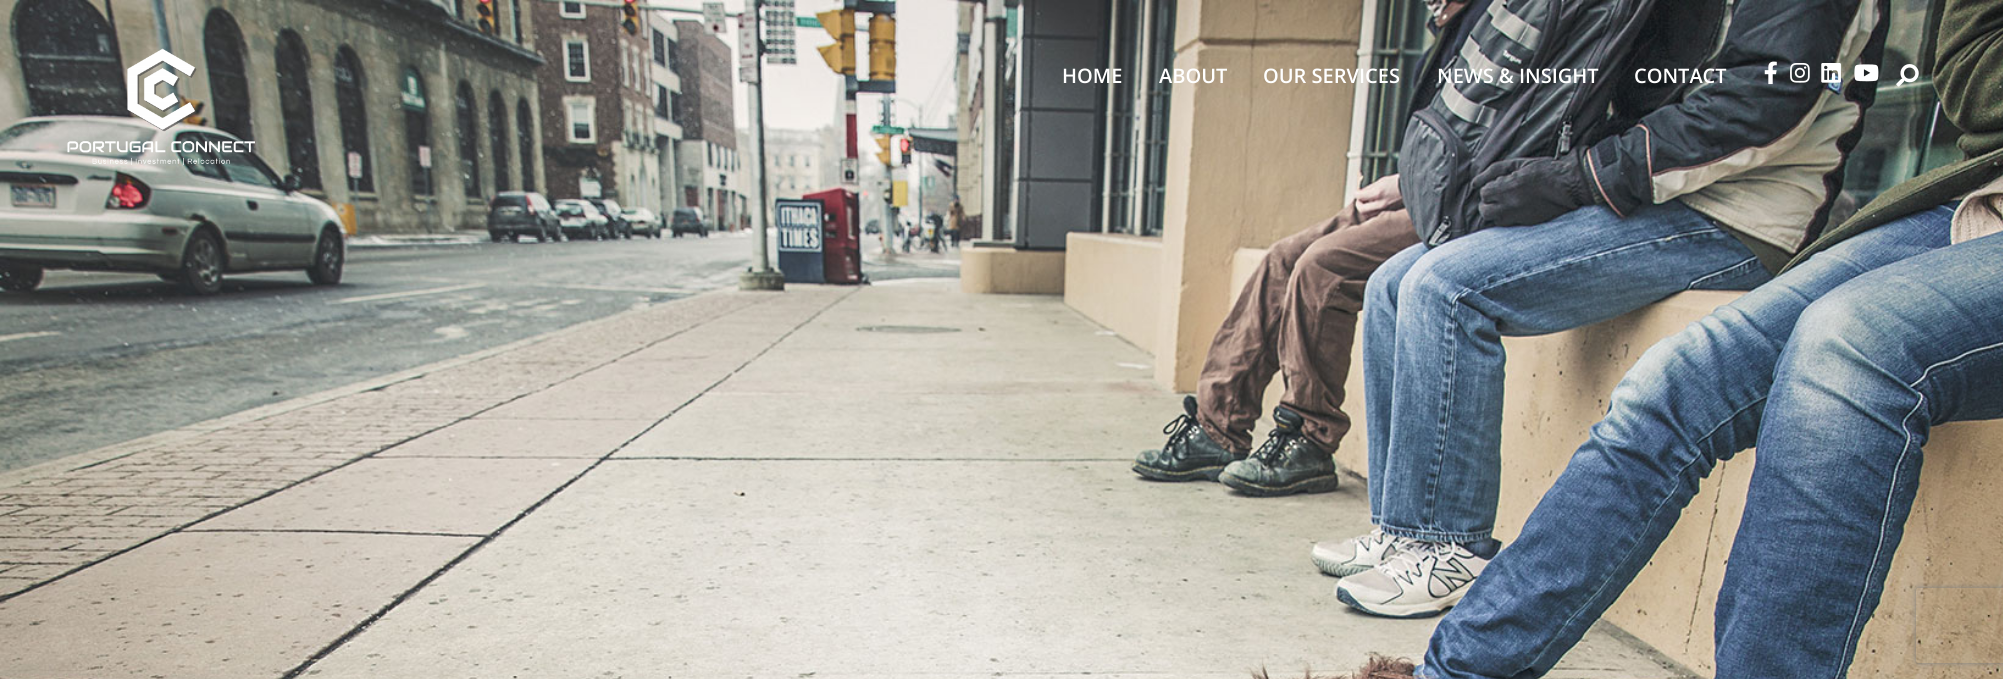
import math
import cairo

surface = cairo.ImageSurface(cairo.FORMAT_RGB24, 2003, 679)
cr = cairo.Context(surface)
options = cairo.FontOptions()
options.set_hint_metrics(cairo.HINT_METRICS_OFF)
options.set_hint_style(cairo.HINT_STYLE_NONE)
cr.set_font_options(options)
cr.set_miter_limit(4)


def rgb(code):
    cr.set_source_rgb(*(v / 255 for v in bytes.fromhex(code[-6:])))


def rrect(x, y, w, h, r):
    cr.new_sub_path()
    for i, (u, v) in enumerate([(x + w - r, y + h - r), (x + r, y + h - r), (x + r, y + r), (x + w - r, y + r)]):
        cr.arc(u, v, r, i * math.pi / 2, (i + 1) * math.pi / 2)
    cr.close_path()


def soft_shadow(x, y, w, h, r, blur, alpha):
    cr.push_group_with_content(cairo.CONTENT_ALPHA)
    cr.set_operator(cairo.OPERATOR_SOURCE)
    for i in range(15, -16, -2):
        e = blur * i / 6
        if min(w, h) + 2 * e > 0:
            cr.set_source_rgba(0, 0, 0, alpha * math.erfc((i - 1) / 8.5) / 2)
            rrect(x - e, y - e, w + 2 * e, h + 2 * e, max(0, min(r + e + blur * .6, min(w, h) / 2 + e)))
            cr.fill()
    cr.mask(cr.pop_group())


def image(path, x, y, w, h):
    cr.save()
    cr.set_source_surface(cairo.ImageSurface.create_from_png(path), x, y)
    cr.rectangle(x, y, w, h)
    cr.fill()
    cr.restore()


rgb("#ffffff")
cr.paint()
image("img/1.png", 0, 0, 2003, 679)
image("img/2.png", 67, 48, 188, 117)
image("img/3.png", 1764, 61, 13, 24)
image("img/4.png", 1790, 63, 20, 20)
image("img/5.png", 1821, 63, 20, 20)
image("img/6.png", 1854, 64, 25, 18)
image("img/7.png", 1896, 64, 23, 23)
cr.save()
cr.set_fill_rule(cairo.FILL_RULE_EVEN_ODD)
cr.new_path()
cr.move_to(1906, 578)
cr.line_to(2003, 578)
cr.line_to(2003, 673)
cr.line_to(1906, 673)
cr.close_path()
cr.move_to(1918.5, 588)
cr.line_to(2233.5, 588)
cr.curve_to(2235, 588, 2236, 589, 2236, 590.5)
cr.line_to(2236, 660.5)
cr.curve_to(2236, 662, 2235, 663, 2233.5, 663)
cr.line_to(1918.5, 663)
cr.curve_to(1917, 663, 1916, 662, 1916, 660.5)
cr.line_to(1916, 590.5)
cr.curve_to(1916, 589, 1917, 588, 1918.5, 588)
cr.close_path()
cr.clip()
rgb("#808080")
soft_shadow(1916, 588, 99, 75, 2.5, 3, 1)
cr.restore()
cr.select_font_face("Open Sans SemiBold")
cr.set_font_size(20)
rgb("#ffffff")
for x, y, s in [
    (1062, 83, "HOME"),
    (1159, 83, "ABOUT"),
    (1263, 83, "OUR SERVICES"),
    (1437, 83, "NEWS & INSIGHT"),
    (1634, 83, "CONTACT"),
]:
    cr.move_to(x, y)
    cr.show_text(s)
surface.write_to_png("page.png")
